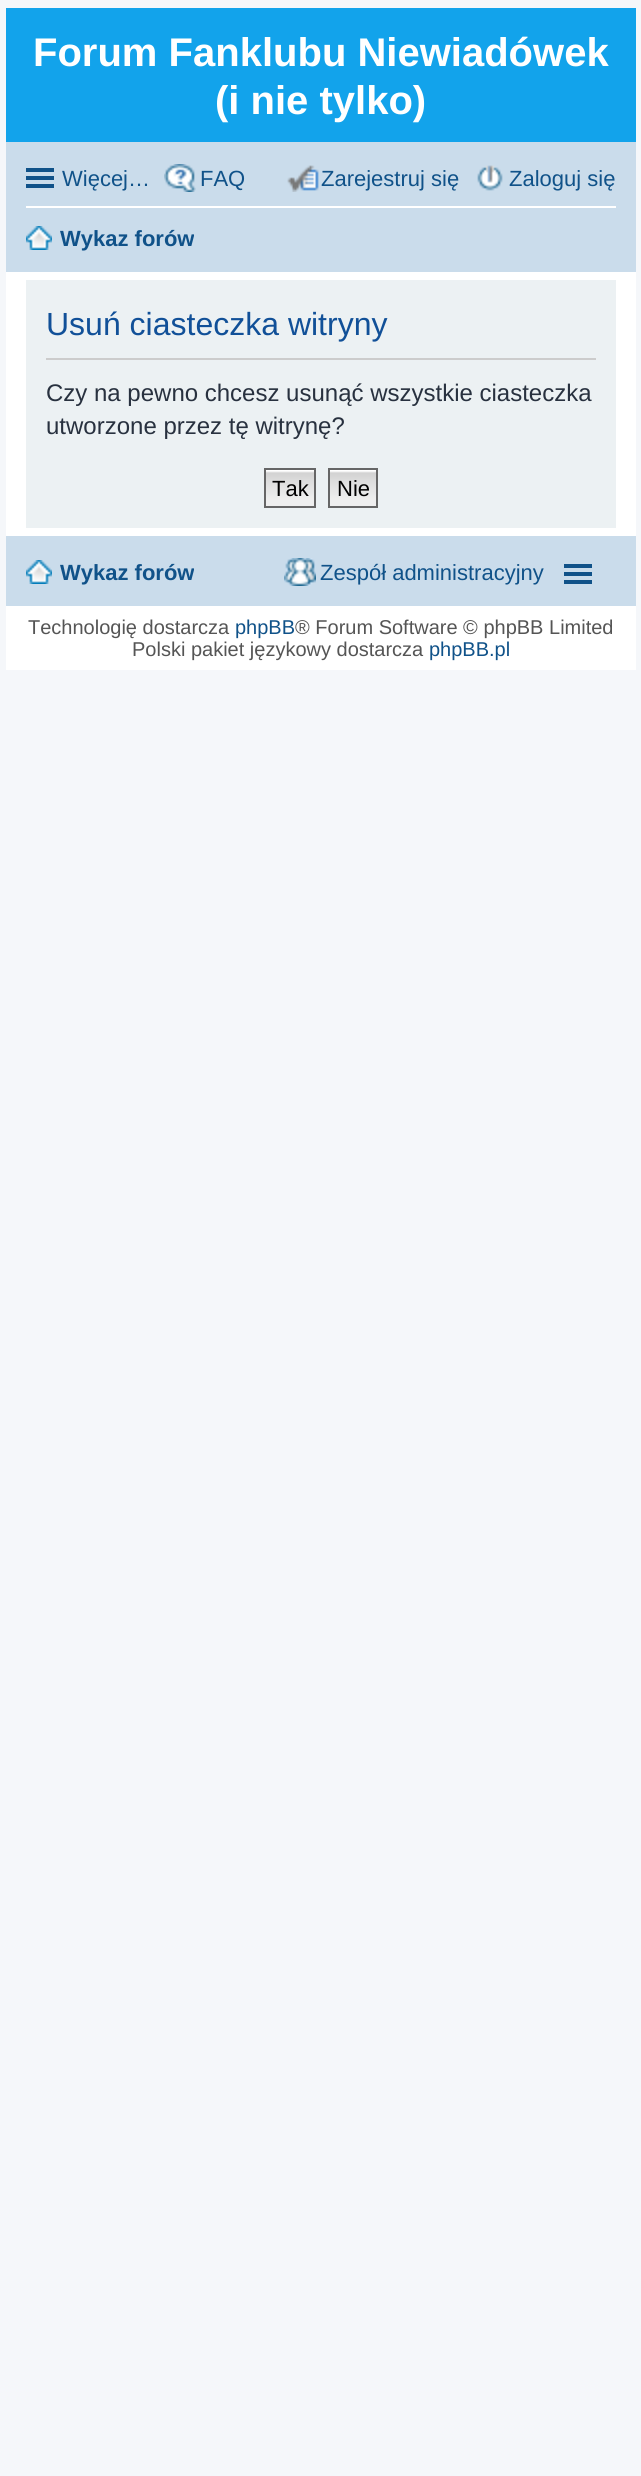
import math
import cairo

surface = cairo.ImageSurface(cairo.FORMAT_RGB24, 641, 2476)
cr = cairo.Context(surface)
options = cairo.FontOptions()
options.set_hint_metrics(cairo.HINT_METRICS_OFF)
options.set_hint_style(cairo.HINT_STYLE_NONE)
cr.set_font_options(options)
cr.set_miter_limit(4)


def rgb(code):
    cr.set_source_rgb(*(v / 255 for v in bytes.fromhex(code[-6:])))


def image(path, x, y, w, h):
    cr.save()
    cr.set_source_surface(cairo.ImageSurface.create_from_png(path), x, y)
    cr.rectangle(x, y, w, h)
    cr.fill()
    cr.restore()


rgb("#f5f7fa")
cr.paint()
for x, y, w, h, color in [
    (6, 272, 630, 398, "#ffffff"),
    (6, 8, 630, 134, "#12a3eb"),
    (6, 142, 630, 130, "#cadceb"),
    (26, 168, 28, 4, "#105289"),
    (26, 176, 28, 4, "#105289"),
    (26, 184, 28, 4, "#105289"),
]:
    rgb(color)
    cr.rectangle(x, y, w, h)
    cr.fill()
image("img/1.png", 164, 164, 32, 28)
image("img/2.png", 287, 165, 32, 27)
image("img/3.png", 477, 165, 26, 26)
rgb("#ffffff")
cr.rectangle(26, 206, 590, 2)
cr.fill()
image("img/4.png", 26, 226, 26, 24)
rgb("#ecf1f3")
cr.rectangle(26, 280, 590, 248)
cr.fill()
rgb("#cccccc")
cr.rectangle(46, 358, 550, 2)
cr.fill()
image("img/5.png", 266, 470, 48, 36)
cr.rectangle(265, 469, 50, 38)
rgb("#666666")
cr.stroke()
image("img/6.png", 330, 470, 46, 36)
cr.rectangle(329, 469, 48, 38)
cr.stroke()
rgb("#cadceb")
cr.rectangle(6, 536, 630, 70)
cr.fill()
image("img/4.png", 26, 560, 26, 24)
image("img/7.png", 284, 558, 32, 28)
for x, y, w, h, color in [
    (564, 564, 28, 4, "#105289"),
    (564, 572, 28, 4, "#105289"),
    (564, 580, 28, 4, "#105289"),
]:
    rgb(color)
    cr.rectangle(x, y, w, h)
    cr.fill()
cr.select_font_face("Liberation Sans", cairo.FONT_SLANT_NORMAL, cairo.FONT_WEIGHT_BOLD)
cr.set_font_size(40)
rgb("#ffffff")
cr.move_to(33, 66)
cr.show_text("Forum Fanklubu Niewiadówek")
cr.move_to(215, 114)
cr.show_text("(i nie tylko)")
cr.select_font_face("Liberation Sans")
cr.set_font_size(22)
rgb("#105289")
for x, y, s in [
    (62, 186, "Więcej…"),
    (200, 186, "FAQ"),
    (321, 186, "Zarejestruj się"),
    (509, 186, "Zaloguj się"),
]:
    cr.move_to(x, y)
    cr.show_text(s)
cr.save()
cr.rectangle(26, 214, 168, 48)
cr.clip()
cr.select_font_face("Liberation Sans", cairo.FONT_SLANT_NORMAL, cairo.FONT_WEIGHT_BOLD)
cr.move_to(60, 246)
cr.show_text("Wykaz forów")
cr.restore()
cr.set_font_size(32)
rgb("#115098")
cr.move_to(46, 335)
cr.show_text("Usuń ciasteczka witryny")
cr.set_font_size(24)
rgb("#28313f")
cr.move_to(46, 401)
cr.show_text("Czy na pewno chcesz usunąć wszystkie ciasteczka")
cr.move_to(46, 434)
cr.show_text("utworzone przez tę witrynę?")
cr.set_font_size(22)
rgb("#000000")
cr.move_to(272, 496)
cr.show_text("Tak")
cr.move_to(337, 496)
cr.show_text("Nie")
cr.save()
cr.rectangle(26, 548, 168, 48)
cr.clip()
cr.select_font_face("Liberation Sans", cairo.FONT_SLANT_NORMAL, cairo.FONT_WEIGHT_BOLD)
rgb("#105289")
cr.move_to(60, 580)
cr.show_text("Wykaz forów")
cr.restore()
rgb("#105289")
cr.move_to(320, 580)
cr.show_text("Zespół administracyjny")
cr.set_font_size(20)
rgb("#555555")
cr.move_to(28, 634)
cr.show_text("Technologię dostarcza")
rgb("#105289")
cr.move_to(235, 634)
cr.show_text("phpBB")
rgb("#555555")
cr.move_to(295, 634)
cr.show_text("® Forum Software © phpBB Limited")
cr.move_to(132, 656)
cr.show_text("Polski pakiet językowy dostarcza")
rgb("#105289")
cr.move_to(429, 656)
cr.show_text("phpBB.pl")
surface.write_to_png("page.png")
